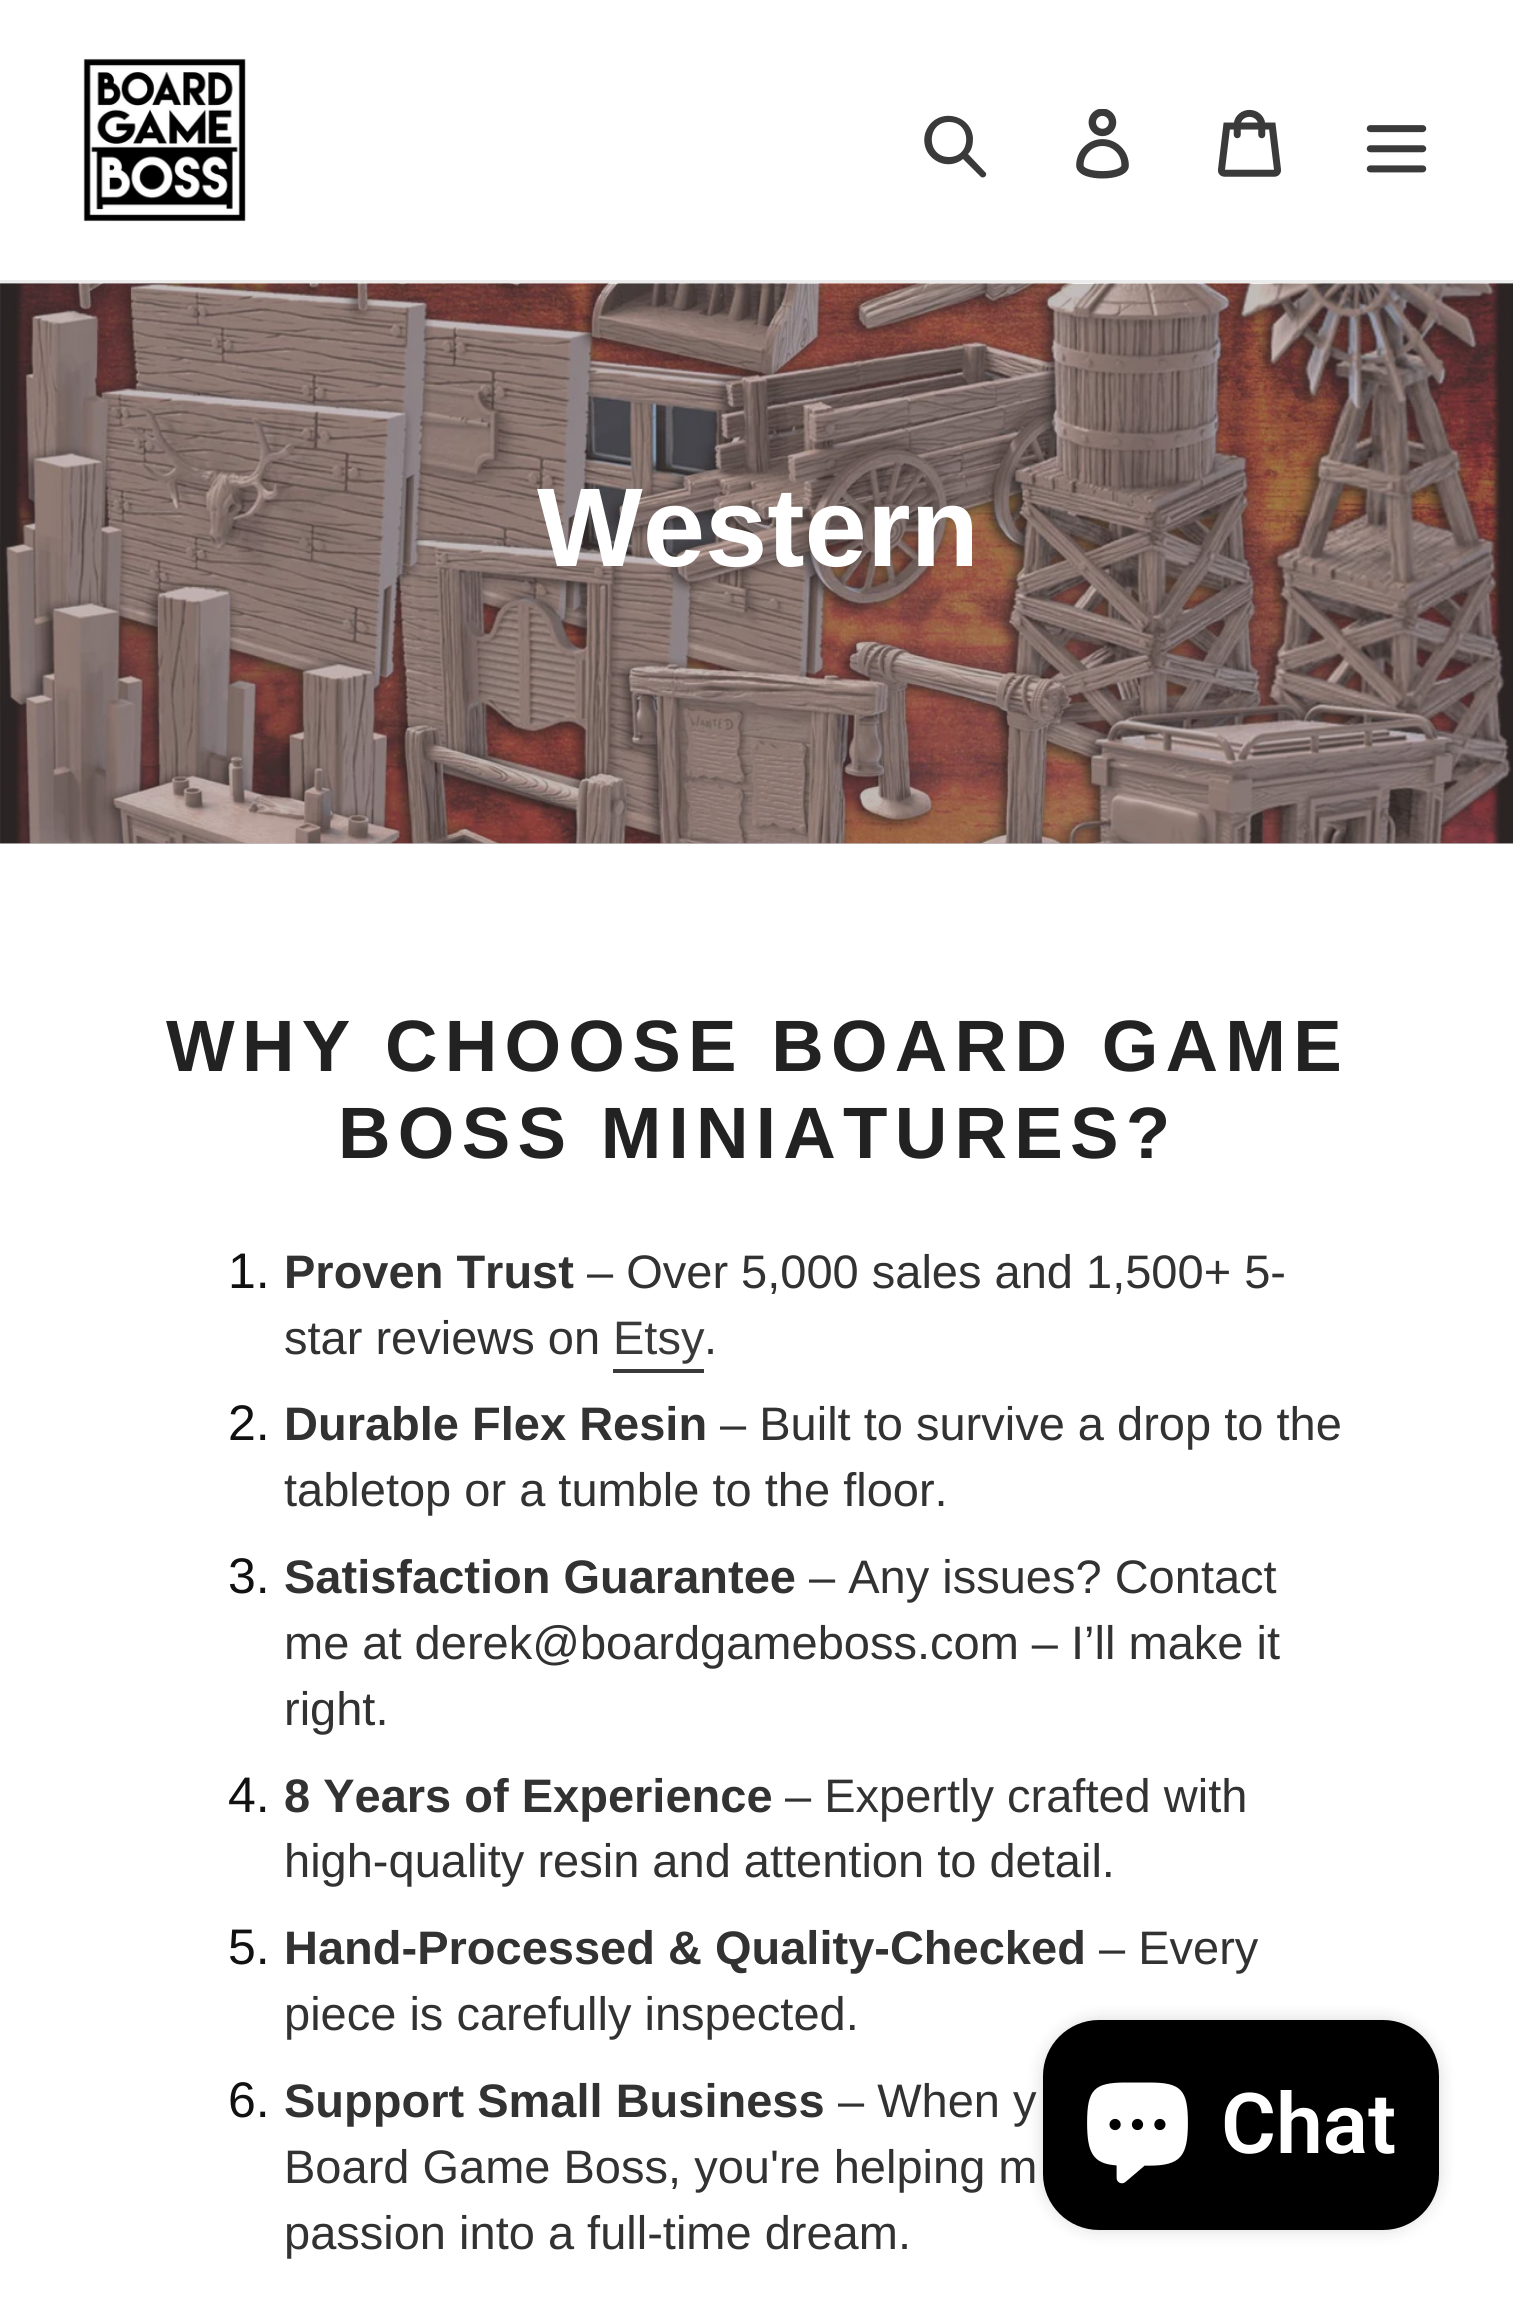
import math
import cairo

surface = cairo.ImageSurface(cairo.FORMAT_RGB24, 1513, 2303)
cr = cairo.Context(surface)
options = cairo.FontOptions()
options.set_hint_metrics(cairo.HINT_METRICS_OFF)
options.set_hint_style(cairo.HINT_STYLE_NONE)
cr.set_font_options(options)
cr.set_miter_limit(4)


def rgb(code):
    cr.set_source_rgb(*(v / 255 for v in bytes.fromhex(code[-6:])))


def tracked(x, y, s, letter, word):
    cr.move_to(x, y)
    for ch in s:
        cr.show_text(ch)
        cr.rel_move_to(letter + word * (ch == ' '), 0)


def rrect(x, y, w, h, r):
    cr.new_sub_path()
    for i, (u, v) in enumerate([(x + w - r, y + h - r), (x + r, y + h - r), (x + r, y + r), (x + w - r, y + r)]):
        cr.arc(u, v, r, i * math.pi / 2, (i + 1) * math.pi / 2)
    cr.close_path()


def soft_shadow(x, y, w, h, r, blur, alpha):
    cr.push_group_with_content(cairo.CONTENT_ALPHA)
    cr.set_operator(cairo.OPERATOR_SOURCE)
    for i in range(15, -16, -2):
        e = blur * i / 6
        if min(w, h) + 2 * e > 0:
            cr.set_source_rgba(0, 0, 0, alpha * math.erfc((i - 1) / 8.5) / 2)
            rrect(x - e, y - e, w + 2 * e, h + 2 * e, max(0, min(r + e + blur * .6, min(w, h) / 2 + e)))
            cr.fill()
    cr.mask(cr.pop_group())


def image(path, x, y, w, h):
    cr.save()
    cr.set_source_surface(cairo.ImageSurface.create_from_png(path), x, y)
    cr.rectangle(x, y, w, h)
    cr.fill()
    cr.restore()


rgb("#ffffff")
cr.paint()
rgb("#c3bcbc")
cr.rectangle(0, 843, 1513, 1)
cr.fill()
rgb("#ebebeb")
cr.rectangle(0, 280, 1513, 4)
cr.fill()
image("img/1.png", 83, 58, 163, 164)
rgb("#3a3a3a")
cr.new_path()
cr.move_to(985, 172)
cr.line_to(968, 154)
cr.curve_to(972, 150, 973, 144, 973, 138)
cr.curve_to(971, 113, 936, 107, 926, 131)
cr.curve_to(923, 138, 924, 147, 928, 153)
cr.curve_to(936, 165, 952, 168, 963, 159)
cr.line_to(981, 177)
cr.curve_to(985, 179, 988, 174, 985, 172)
cr.close_path()
cr.move_to(949, 157)
cr.curve_to(926, 157, 926, 122, 949, 122)
cr.curve_to(972, 122, 972, 157, 949, 157)
cr.close_path()
cr.fill()
image("img/2.png", 1076, 109, 53, 70)
image("img/3.png", 1218, 109, 63, 68)
image("img/4.png", 1366, 125, 61, 48)
image("img/5.png", 0, 283, 1513, 561)
cr.rectangle(613, 1369, 91, 4)
cr.fill()
rgb("#000000")
soft_shadow(1043, 2020, 396, 210, 56, 9, 0.15)
rgb("#000000")
rrect(1043, 2020, 396, 210, 56)
cr.fill()
image("img/6.png", 1087, 2082, 101, 102)
cr.select_font_face("Liberation Sans", cairo.FONT_SLANT_NORMAL, cairo.FONT_WEIGHT_BOLD)
cr.set_font_size(112)
rgb("#ffffff")
cr.move_to(537, 566)
cr.show_text("Western")
cr.set_font_size(72.75)
rgb("#222222")
tracked(166, 1071, "WHY CHOOSE BOARD GAME", 7.25, 0)
tracked(338, 1158, "BOSS MINIATURES?", 7.25, 0)
cr.select_font_face("Liberation Sans")
cr.set_font_size(50)
rgb("#111111")
cr.move_to(228, 1288)
cr.show_text("1.")
cr.select_font_face("Liberation Sans", cairo.FONT_SLANT_NORMAL, cairo.FONT_WEIGHT_BOLD)
cr.set_font_size(47)
rgb("#333232")
cr.move_to(284, 1288)
cr.show_text("Proven Trust")
cr.select_font_face("Liberation Sans")
cr.move_to(587, 1288)
cr.show_text("– Over 5,000 sales and 1,500+ 5-")
cr.move_to(284, 1354)
cr.show_text("star reviews on")
rgb("#3a3a3a")
cr.move_to(613, 1354)
cr.show_text("Etsy")
rgb("#333232")
cr.move_to(704, 1354)
cr.show_text(".")
cr.set_font_size(50)
rgb("#111111")
cr.move_to(228, 1440)
cr.show_text("2.")
cr.select_font_face("Liberation Sans", cairo.FONT_SLANT_NORMAL, cairo.FONT_WEIGHT_BOLD)
cr.set_font_size(47)
rgb("#333232")
cr.move_to(284, 1440)
cr.show_text("Durable Flex Resin")
cr.select_font_face("Liberation Sans")
cr.move_to(720, 1440)
cr.show_text("– Built to survive a drop to the")
cr.move_to(284, 1506)
cr.show_text("tabletop or a tumble to the floor.")
cr.set_font_size(50)
rgb("#111111")
cr.move_to(228, 1593)
cr.show_text("3.")
cr.select_font_face("Liberation Sans", cairo.FONT_SLANT_NORMAL, cairo.FONT_WEIGHT_BOLD)
cr.set_font_size(47)
rgb("#333232")
cr.move_to(284, 1593)
cr.show_text("Satisfaction Guarantee")
cr.select_font_face("Liberation Sans")
for x, y, s in [
    (809, 1593, "– Any issues? Contact"),
    (284, 1659, "me at derek@boardgameboss.com – I’ll make it"),
    (284, 1725, "right."),
]:
    cr.move_to(x, y)
    cr.show_text(s)
cr.set_font_size(50)
rgb("#111111")
cr.move_to(228, 1812)
cr.show_text("4.")
cr.select_font_face("Liberation Sans", cairo.FONT_SLANT_NORMAL, cairo.FONT_WEIGHT_BOLD)
cr.set_font_size(47)
rgb("#333232")
cr.move_to(284, 1812)
cr.show_text("8 Years of Experience")
cr.select_font_face("Liberation Sans")
cr.move_to(785, 1812)
cr.show_text("– Expertly crafted with")
cr.move_to(284, 1877)
cr.show_text("high-quality resin and attention to detail.")
cr.set_font_size(50)
rgb("#111111")
cr.move_to(228, 1964)
cr.show_text("5.")
cr.select_font_face("Liberation Sans", cairo.FONT_SLANT_NORMAL, cairo.FONT_WEIGHT_BOLD)
cr.set_font_size(47)
rgb("#333232")
cr.move_to(284, 1964)
cr.show_text("Hand-Processed & Quality-Checked")
cr.select_font_face("Liberation Sans")
cr.move_to(1099, 1964)
cr.show_text("– Every")
cr.move_to(284, 2030)
cr.show_text("piece is carefully inspected.")
cr.set_font_size(50)
rgb("#111111")
cr.move_to(228, 2117)
cr.show_text("6.")
cr.select_font_face("Liberation Sans", cairo.FONT_SLANT_NORMAL, cairo.FONT_WEIGHT_BOLD)
cr.set_font_size(47)
rgb("#333232")
cr.move_to(284, 2117)
cr.show_text("Support Small Business")
cr.select_font_face("Liberation Sans")
for x, y, s in [
    (838, 2117, "– When y"),
    (284, 2183, "Board Game Boss, you're helping m"),
    (284, 2249, "passion into a full-time dream."),
]:
    cr.move_to(x, y)
    cr.show_text(s)
cr.select_font_face("Roboto SemiBold")
cr.set_font_size(84)
rgb("#ffffff")
cr.move_to(1221, 2153)
cr.show_text("Chat")
surface.write_to_png("page.png")
